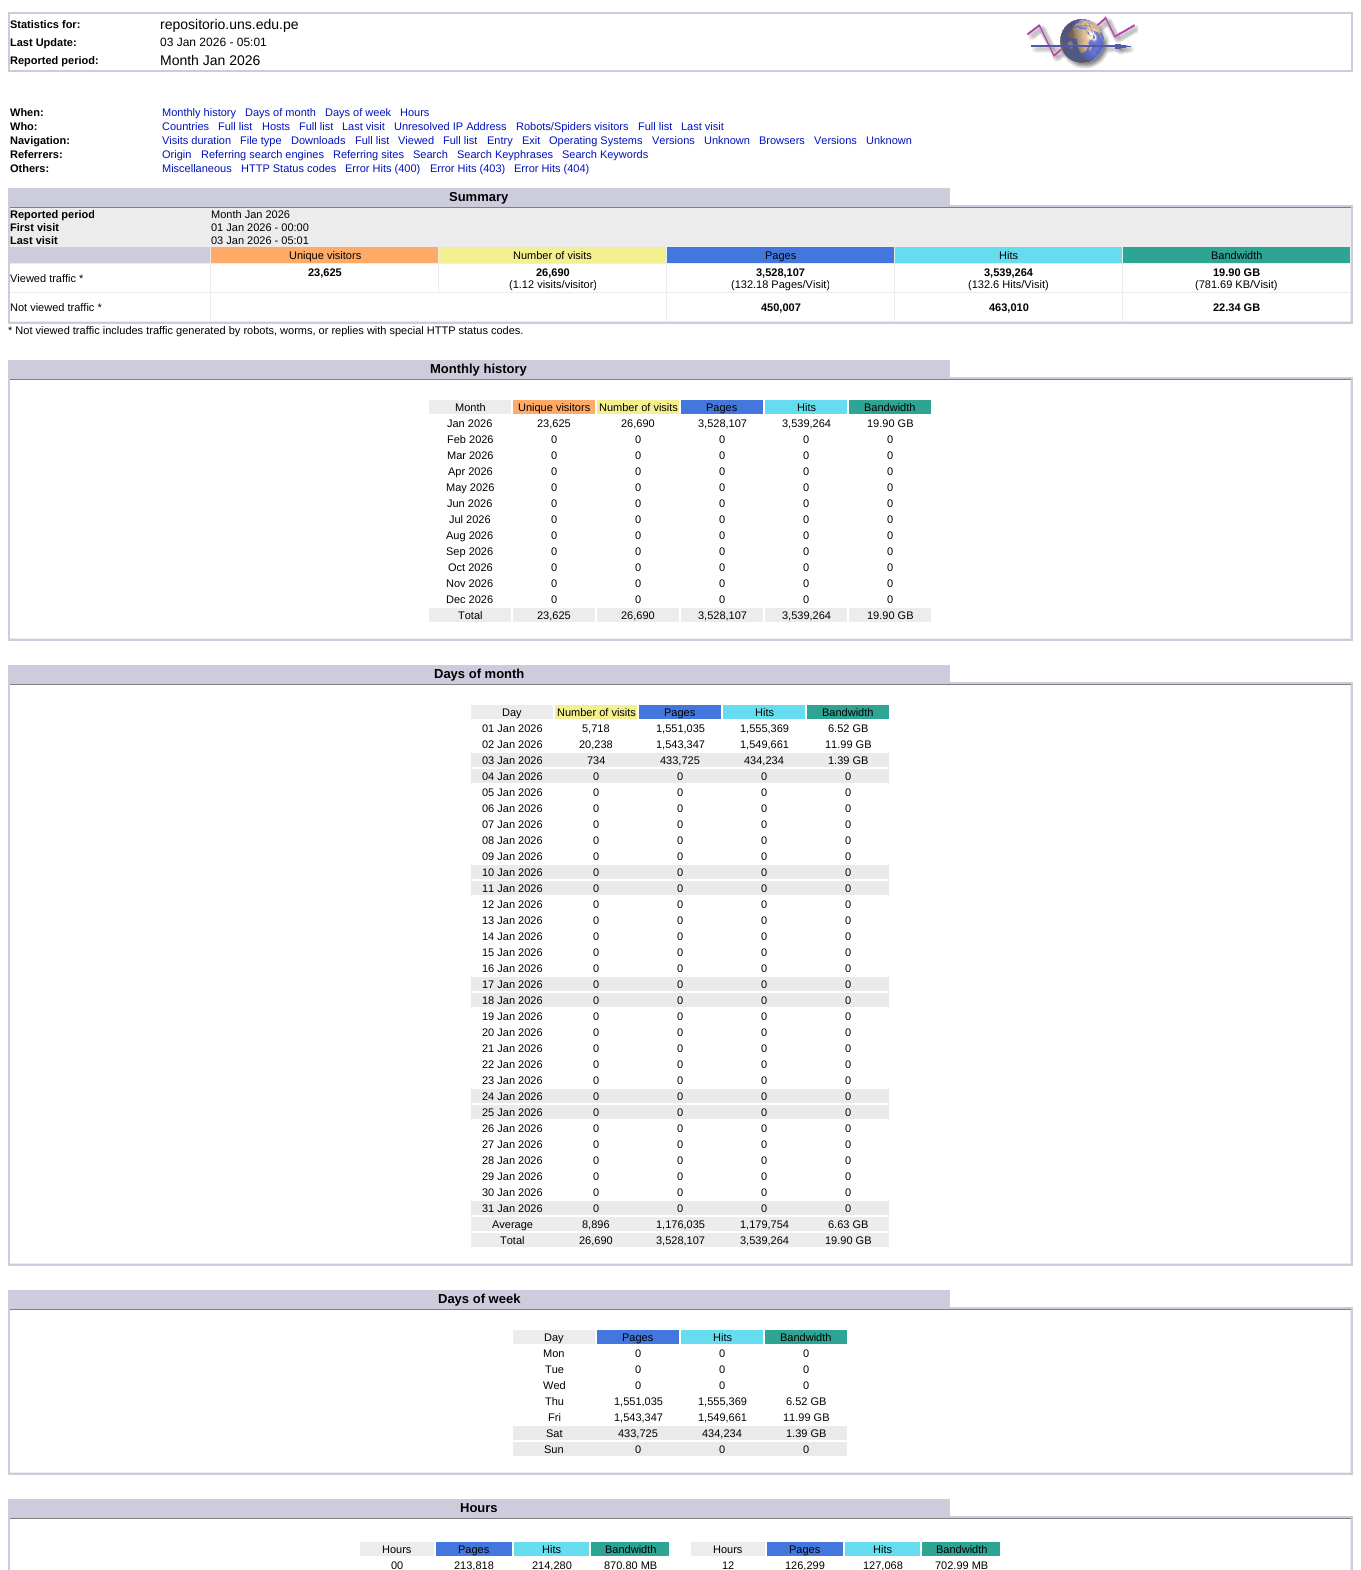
import math
import cairo

surface = cairo.ImageSurface(cairo.FORMAT_RGB24, 1361, 1570)
cr = cairo.Context(surface)
options = cairo.FontOptions()
options.set_hint_metrics(cairo.HINT_METRICS_OFF)
options.set_hint_style(cairo.HINT_STYLE_NONE)
cr.set_font_options(options)
cr.set_miter_limit(4)


def rgb(code):
    cr.set_source_rgb(*(v / 255 for v in bytes.fromhex(code[-6:])))


def image(path, x, y, w, h):
    cr.save()
    cr.set_source_surface(cairo.ImageSurface.create_from_png(path), x, y)
    cr.rectangle(x, y, w, h)
    cr.fill()
    cr.restore()


rgb("#ffffff")
cr.paint()
rgb("#ccccdd")
cr.rectangle(8, 12, 1345, 60)
cr.fill()
rgb("#ffffff")
cr.rectangle(10, 14, 1341, 56)
cr.fill()
image("img/1.png", 1027, 16, 111, 53)
for x, y, w, h, color in [
    (8, 188, 1345, 136, "#ccccdd"),
    (950, 188, 403, 17, "#ffffff"),
    (10, 264, 1340, 57, "#ffffff"),
    (10, 207, 1341, 1, "#808080"),
    (10, 208, 1341, 39, "#ececec"),
    (210, 247, 1, 75, "#ececec"),
    (10, 263, 201, 1, "#ececec"),
    (211, 247, 227, 16, "#ffaa66"),
    (438, 247, 1, 46, "#ececec"),
    (211, 263, 228, 1, "#ececec"),
    (439, 247, 227, 16, "#f4f090"),
    (666, 247, 1, 75, "#ececec"),
    (439, 263, 228, 1, "#ececec"),
    (667, 247, 227, 16, "#4477dd"),
    (894, 247, 1, 75, "#ececec"),
    (667, 263, 228, 1, "#ececec"),
    (895, 247, 227, 16, "#66ddee"),
    (1122, 247, 1, 75, "#ececec"),
    (895, 263, 228, 1, "#ececec"),
    (1123, 247, 227, 16, "#2ea495"),
    (1350, 247, 1, 75, "#ececec"),
    (1123, 263, 228, 1, "#ececec"),
    (10, 292, 1341, 1, "#ececec"),
    (10, 321, 1341, 1, "#ececec"),
    (8, 360, 1345, 281, "#ccccdd"),
    (950, 360, 403, 17, "#ffffff"),
    (10, 380, 1340, 258, "#ffffff"),
    (10, 379, 1341, 1, "#808080"),
    (1350, 380, 1, 259, "#ececec"),
    (10, 638, 1341, 1, "#ececec"),
    (429, 400, 82, 14, "#ececec"),
    (513, 400, 82, 14, "#ffaa66"),
    (597, 400, 82, 14, "#f4f090"),
    (681, 400, 82, 14, "#4477dd"),
    (765, 400, 82, 14, "#66ddee"),
    (849, 400, 82, 14, "#2ea495"),
    (429, 608, 82, 14, "#ececec"),
    (513, 608, 82, 14, "#ececec"),
    (597, 608, 82, 14, "#ececec"),
    (681, 608, 82, 14, "#ececec"),
    (765, 608, 82, 14, "#ececec"),
    (849, 608, 82, 14, "#ececec"),
    (8, 665, 1345, 601, "#ccccdd"),
    (950, 665, 403, 17, "#ffffff"),
    (10, 685, 1340, 578, "#ffffff"),
    (10, 684, 1341, 1, "#808080"),
    (1350, 685, 1, 579, "#ececec"),
    (10, 1263, 1341, 1, "#ececec"),
    (471, 705, 82, 14, "#ececec"),
    (555, 705, 82, 14, "#f4f090"),
    (639, 705, 82, 14, "#4477dd"),
    (723, 705, 82, 14, "#66ddee"),
    (807, 705, 82, 14, "#2ea495"),
    (471, 753, 418, 14, "#eaeaea"),
    (471, 769, 418, 14, "#eaeaea"),
    (471, 865, 418, 14, "#eaeaea"),
    (471, 881, 418, 14, "#eaeaea"),
    (471, 977, 418, 14, "#eaeaea"),
    (471, 993, 418, 14, "#eaeaea"),
    (471, 1089, 418, 14, "#eaeaea"),
    (471, 1105, 418, 14, "#eaeaea"),
    (471, 1201, 418, 14, "#eaeaea"),
    (471, 1217, 418, 14, "#ececec"),
    (471, 1233, 418, 14, "#ececec"),
    (8, 1290, 1345, 185, "#ccccdd"),
    (950, 1290, 403, 17, "#ffffff"),
    (10, 1310, 1340, 162, "#ffffff"),
    (10, 1309, 1341, 1, "#808080"),
    (1350, 1310, 1, 163, "#ececec"),
    (10, 1472, 1341, 1, "#ececec"),
    (513, 1330, 82, 14, "#ececec"),
    (597, 1330, 82, 14, "#4477dd"),
    (681, 1330, 82, 14, "#66ddee"),
    (765, 1330, 82, 14, "#2ea495"),
    (513, 1426, 334, 14, "#eaeaea"),
    (513, 1442, 334, 14, "#eaeaea"),
    (8, 1499, 1345, 71, "#ccccdd"),
    (950, 1499, 403, 17, "#ffffff"),
    (10, 1519, 1340, 51, "#ffffff"),
    (10, 1518, 1341, 1, "#808080"),
    (1350, 1519, 1, 51, "#ececec"),
    (360, 1542, 74, 14, "#ececec"),
    (436, 1542, 76, 14, "#4477dd"),
    (514, 1542, 75, 14, "#66ddee"),
    (591, 1542, 78, 14, "#2ea495"),
    (691, 1542, 74, 14, "#ececec"),
    (767, 1542, 76, 14, "#4477dd"),
    (845, 1542, 75, 14, "#66ddee"),
    (922, 1542, 78, 14, "#2ea495"),
]:
    rgb(color)
    cr.rectangle(x, y, w, h)
    cr.fill()
cr.select_font_face("Liberation Sans", cairo.FONT_SLANT_NORMAL, cairo.FONT_WEIGHT_BOLD)
cr.set_font_size(11)
rgb("#000000")
cr.move_to(10, 28)
cr.show_text("Statistics for:")
cr.select_font_face("Liberation Sans")
cr.set_font_size(14)
cr.move_to(160, 29)
cr.show_text("repositorio.uns.edu.pe")
cr.select_font_face("Liberation Sans", cairo.FONT_SLANT_NORMAL, cairo.FONT_WEIGHT_BOLD)
cr.set_font_size(11)
cr.move_to(10, 46)
cr.show_text("Last Update:")
cr.select_font_face("Liberation Sans")
cr.set_font_size(12)
cr.move_to(160, 46)
cr.show_text("03 Jan 2026 - 05:01")
cr.select_font_face("Liberation Sans", cairo.FONT_SLANT_NORMAL, cairo.FONT_WEIGHT_BOLD)
cr.set_font_size(11)
cr.move_to(10, 64)
cr.show_text("Reported period:")
cr.select_font_face("Liberation Sans")
cr.set_font_size(14)
cr.move_to(160, 65)
cr.show_text("Month Jan 2026")
cr.select_font_face("Liberation Sans", cairo.FONT_SLANT_NORMAL, cairo.FONT_WEIGHT_BOLD)
cr.set_font_size(11)
cr.move_to(10, 116)
cr.show_text("When:")
cr.select_font_face("Liberation Sans")
rgb("#0011bb")
for x, y, s in [
    (162, 116, "Monthly history"),
    (245, 116, "Days of month"),
    (325, 116, "Days of week"),
    (400, 116, "Hours"),
]:
    cr.move_to(x, y)
    cr.show_text(s)
cr.select_font_face("Liberation Sans", cairo.FONT_SLANT_NORMAL, cairo.FONT_WEIGHT_BOLD)
rgb("#000000")
cr.move_to(10, 130)
cr.show_text("Who:")
cr.select_font_face("Liberation Sans")
rgb("#0011bb")
for x, y, s in [
    (162, 130, "Countries"),
    (218, 130, "Full list"),
    (262, 130, "Hosts"),
    (299, 130, "Full list"),
    (342, 130, "Last visit"),
    (394, 130, "Unresolved IP Address"),
    (516, 130, "Robots/Spiders visitors"),
    (638, 130, "Full list"),
    (681, 130, "Last visit"),
]:
    cr.move_to(x, y)
    cr.show_text(s)
cr.select_font_face("Liberation Sans", cairo.FONT_SLANT_NORMAL, cairo.FONT_WEIGHT_BOLD)
rgb("#000000")
cr.move_to(10, 144)
cr.show_text("Navigation:")
cr.select_font_face("Liberation Sans")
rgb("#0011bb")
for x, y, s in [
    (162, 144, "Visits duration"),
    (240, 144, "File type"),
    (291, 144, "Downloads"),
    (355, 144, "Full list"),
    (398, 144, "Viewed"),
    (443, 144, "Full list"),
    (487, 144, "Entry"),
    (522, 144, "Exit"),
    (549, 144, "Operating Systems"),
    (652, 144, "Versions"),
    (704, 144, "Unknown"),
    (759, 144, "Browsers"),
    (814, 144, "Versions"),
    (866, 144, "Unknown"),
]:
    cr.move_to(x, y)
    cr.show_text(s)
cr.select_font_face("Liberation Sans", cairo.FONT_SLANT_NORMAL, cairo.FONT_WEIGHT_BOLD)
rgb("#000000")
cr.move_to(10, 158)
cr.show_text("Referrers:")
cr.select_font_face("Liberation Sans")
rgb("#0011bb")
for x, y, s in [
    (162, 158, "Origin"),
    (201, 158, "Referring search engines"),
    (333, 158, "Referring sites"),
    (413, 158, "Search"),
    (457, 158, "Search Keyphrases"),
    (562, 158, "Search Keywords"),
]:
    cr.move_to(x, y)
    cr.show_text(s)
cr.select_font_face("Liberation Sans", cairo.FONT_SLANT_NORMAL, cairo.FONT_WEIGHT_BOLD)
rgb("#000000")
cr.move_to(10, 172)
cr.show_text("Others:")
cr.select_font_face("Liberation Sans")
rgb("#0011bb")
for x, y, s in [
    (162, 172, "Miscellaneous"),
    (241, 172, "HTTP Status codes"),
    (345, 172, "Error Hits (400)"),
    (430, 172, "Error Hits (403)"),
    (514, 172, "Error Hits (404)"),
]:
    cr.move_to(x, y)
    cr.show_text(s)
cr.select_font_face("Liberation Sans", cairo.FONT_SLANT_NORMAL, cairo.FONT_WEIGHT_BOLD)
cr.set_font_size(13)
rgb("#000000")
cr.move_to(449, 201)
cr.show_text("Summary")
cr.set_font_size(11)
cr.move_to(10, 218)
cr.show_text("Reported period")
cr.select_font_face("Liberation Sans")
cr.move_to(211, 218)
cr.show_text("Month Jan 2026")
cr.select_font_face("Liberation Sans", cairo.FONT_SLANT_NORMAL, cairo.FONT_WEIGHT_BOLD)
cr.move_to(10, 231)
cr.show_text("First visit")
cr.select_font_face("Liberation Sans")
cr.move_to(211, 231)
cr.show_text("01 Jan 2026 - 00:00")
cr.select_font_face("Liberation Sans", cairo.FONT_SLANT_NORMAL, cairo.FONT_WEIGHT_BOLD)
cr.move_to(10, 244)
cr.show_text("Last visit")
cr.select_font_face("Liberation Sans")
for x, y, s in [
    (211, 244, "03 Jan 2026 - 05:01"),
    (289, 259, "Unique visitors"),
    (513, 259, "Number of visits"),
    (765, 259, "Pages"),
    (999, 259, "Hits"),
    (1211, 259, "Bandwidth"),
    (10, 282, "Viewed traffic *"),
]:
    cr.move_to(x, y)
    cr.show_text(s)
cr.select_font_face("Liberation Sans", cairo.FONT_SLANT_NORMAL, cairo.FONT_WEIGHT_BOLD)
cr.move_to(308, 276)
cr.show_text("23,625")
cr.move_to(536, 276)
cr.show_text("26,690")
cr.select_font_face("Liberation Sans")
cr.move_to(509, 288)
cr.show_text("(1.12 visits/visitor)")
cr.select_font_face("Liberation Sans", cairo.FONT_SLANT_NORMAL, cairo.FONT_WEIGHT_BOLD)
cr.move_to(756, 276)
cr.show_text("3,528,107")
cr.select_font_face("Liberation Sans")
cr.move_to(731, 288)
cr.show_text("(132.18 Pages/Visit)")
cr.select_font_face("Liberation Sans", cairo.FONT_SLANT_NORMAL, cairo.FONT_WEIGHT_BOLD)
cr.move_to(984, 276)
cr.show_text("3,539,264")
cr.select_font_face("Liberation Sans")
cr.move_to(968, 288)
cr.show_text("(132.6 Hits/Visit)")
cr.select_font_face("Liberation Sans", cairo.FONT_SLANT_NORMAL, cairo.FONT_WEIGHT_BOLD)
cr.move_to(1213, 276)
cr.show_text("19.90 GB")
cr.select_font_face("Liberation Sans")
cr.move_to(1195, 288)
cr.show_text("(781.69 KB/Visit)")
cr.move_to(10, 311)
cr.show_text("Not viewed traffic *")
cr.select_font_face("Liberation Sans", cairo.FONT_SLANT_NORMAL, cairo.FONT_WEIGHT_BOLD)
for x, y, s in [
    (761, 311, "450,007"),
    (989, 311, "463,010"),
    (1213, 311, "22.34 GB"),
]:
    cr.move_to(x, y)
    cr.show_text(s)
cr.select_font_face("Liberation Sans")
cr.move_to(8, 334)
cr.show_text("* Not viewed traffic includes traffic generated by robots, worms, or replies with special HTTP status codes.")
cr.select_font_face("Liberation Sans", cairo.FONT_SLANT_NORMAL, cairo.FONT_WEIGHT_BOLD)
cr.set_font_size(13)
cr.move_to(430, 373)
cr.show_text("Monthly history")
cr.select_font_face("Liberation Sans")
cr.set_font_size(11)
for x, y, s in [
    (455, 411, "Month"),
    (518, 411, "Unique visitors"),
    (599, 411, "Number of visits"),
    (706, 411, "Pages"),
    (797, 411, "Hits"),
    (864, 411, "Bandwidth"),
    (447, 427, "Jan 2026"),
    (537, 427, "23,625"),
    (621, 427, "26,690"),
    (698, 427, "3,528,107"),
    (782, 427, "3,539,264"),
    (867, 427, "19.90 GB"),
    (447, 443, "Feb 2026"),
    (551, 443, "0"),
    (635, 443, "0"),
    (719, 443, "0"),
    (803, 443, "0"),
    (887, 443, "0"),
    (447, 459, "Mar 2026"),
    (551, 459, "0"),
    (635, 459, "0"),
    (719, 459, "0"),
    (803, 459, "0"),
    (887, 459, "0"),
    (448, 475, "Apr 2026"),
    (551, 475, "0"),
    (635, 475, "0"),
    (719, 475, "0"),
    (803, 475, "0"),
    (887, 475, "0"),
    (446, 491, "May 2026"),
    (551, 491, "0"),
    (635, 491, "0"),
    (719, 491, "0"),
    (803, 491, "0"),
    (887, 491, "0"),
    (447, 507, "Jun 2026"),
    (551, 507, "0"),
    (635, 507, "0"),
    (719, 507, "0"),
    (803, 507, "0"),
    (887, 507, "0"),
    (449, 523, "Jul 2026"),
    (551, 523, "0"),
    (635, 523, "0"),
    (719, 523, "0"),
    (803, 523, "0"),
    (887, 523, "0"),
    (446, 539, "Aug 2026"),
    (551, 539, "0"),
    (635, 539, "0"),
    (719, 539, "0"),
    (803, 539, "0"),
    (887, 539, "0"),
    (446, 555, "Sep 2026"),
    (551, 555, "0"),
    (635, 555, "0"),
    (719, 555, "0"),
    (803, 555, "0"),
    (887, 555, "0"),
    (448, 571, "Oct 2026"),
    (551, 571, "0"),
    (635, 571, "0"),
    (719, 571, "0"),
    (803, 571, "0"),
    (887, 571, "0"),
    (446, 587, "Nov 2026"),
    (551, 587, "0"),
    (635, 587, "0"),
    (719, 587, "0"),
    (803, 587, "0"),
    (887, 587, "0"),
    (446, 603, "Dec 2026"),
    (551, 603, "0"),
    (635, 603, "0"),
    (719, 603, "0"),
    (803, 603, "0"),
    (887, 603, "0"),
    (458, 619, "Total"),
    (537, 619, "23,625"),
    (621, 619, "26,690"),
    (698, 619, "3,528,107"),
    (782, 619, "3,539,264"),
    (867, 619, "19.90 GB"),
]:
    cr.move_to(x, y)
    cr.show_text(s)
cr.select_font_face("Liberation Sans", cairo.FONT_SLANT_NORMAL, cairo.FONT_WEIGHT_BOLD)
cr.set_font_size(13)
cr.move_to(434, 678)
cr.show_text("Days of month")
cr.select_font_face("Liberation Sans")
cr.set_font_size(11)
for x, y, s in [
    (502, 716, "Day"),
    (557, 716, "Number of visits"),
    (664, 716, "Pages"),
    (755, 716, "Hits"),
    (822, 716, "Bandwidth"),
    (482, 732, "01 Jan 2026"),
    (582, 732, "5,718"),
    (656, 732, "1,551,035"),
    (740, 732, "1,555,369"),
    (828, 732, "6.52 GB"),
    (482, 748, "02 Jan 2026"),
    (579, 748, "20,238"),
    (656, 748, "1,543,347"),
    (740, 748, "1,549,661"),
    (825, 748, "11.99 GB"),
    (482, 764, "03 Jan 2026"),
    (587, 764, "734"),
    (660, 764, "433,725"),
    (744, 764, "434,234"),
    (828, 764, "1.39 GB"),
    (482, 780, "04 Jan 2026"),
    (593, 780, "0"),
    (677, 780, "0"),
    (761, 780, "0"),
    (845, 780, "0"),
    (482, 796, "05 Jan 2026"),
    (593, 796, "0"),
    (677, 796, "0"),
    (761, 796, "0"),
    (845, 796, "0"),
    (482, 812, "06 Jan 2026"),
    (593, 812, "0"),
    (677, 812, "0"),
    (761, 812, "0"),
    (845, 812, "0"),
    (482, 828, "07 Jan 2026"),
    (593, 828, "0"),
    (677, 828, "0"),
    (761, 828, "0"),
    (845, 828, "0"),
    (482, 844, "08 Jan 2026"),
    (593, 844, "0"),
    (677, 844, "0"),
    (761, 844, "0"),
    (845, 844, "0"),
    (482, 860, "09 Jan 2026"),
    (593, 860, "0"),
    (677, 860, "0"),
    (761, 860, "0"),
    (845, 860, "0"),
    (482, 876, "10 Jan 2026"),
    (593, 876, "0"),
    (677, 876, "0"),
    (761, 876, "0"),
    (845, 876, "0"),
    (482, 892, "11 Jan 2026"),
    (593, 892, "0"),
    (677, 892, "0"),
    (761, 892, "0"),
    (845, 892, "0"),
    (482, 908, "12 Jan 2026"),
    (593, 908, "0"),
    (677, 908, "0"),
    (761, 908, "0"),
    (845, 908, "0"),
    (482, 924, "13 Jan 2026"),
    (593, 924, "0"),
    (677, 924, "0"),
    (761, 924, "0"),
    (845, 924, "0"),
    (482, 940, "14 Jan 2026"),
    (593, 940, "0"),
    (677, 940, "0"),
    (761, 940, "0"),
    (845, 940, "0"),
    (482, 956, "15 Jan 2026"),
    (593, 956, "0"),
    (677, 956, "0"),
    (761, 956, "0"),
    (845, 956, "0"),
    (482, 972, "16 Jan 2026"),
    (593, 972, "0"),
    (677, 972, "0"),
    (761, 972, "0"),
    (845, 972, "0"),
    (482, 988, "17 Jan 2026"),
    (593, 988, "0"),
    (677, 988, "0"),
    (761, 988, "0"),
    (845, 988, "0"),
    (482, 1004, "18 Jan 2026"),
    (593, 1004, "0"),
    (677, 1004, "0"),
    (761, 1004, "0"),
    (845, 1004, "0"),
    (482, 1020, "19 Jan 2026"),
    (593, 1020, "0"),
    (677, 1020, "0"),
    (761, 1020, "0"),
    (845, 1020, "0"),
    (482, 1036, "20 Jan 2026"),
    (593, 1036, "0"),
    (677, 1036, "0"),
    (761, 1036, "0"),
    (845, 1036, "0"),
    (482, 1052, "21 Jan 2026"),
    (593, 1052, "0"),
    (677, 1052, "0"),
    (761, 1052, "0"),
    (845, 1052, "0"),
    (482, 1068, "22 Jan 2026"),
    (593, 1068, "0"),
    (677, 1068, "0"),
    (761, 1068, "0"),
    (845, 1068, "0"),
    (482, 1084, "23 Jan 2026"),
    (593, 1084, "0"),
    (677, 1084, "0"),
    (761, 1084, "0"),
    (845, 1084, "0"),
    (482, 1100, "24 Jan 2026"),
    (593, 1100, "0"),
    (677, 1100, "0"),
    (761, 1100, "0"),
    (845, 1100, "0"),
    (482, 1116, "25 Jan 2026"),
    (593, 1116, "0"),
    (677, 1116, "0"),
    (761, 1116, "0"),
    (845, 1116, "0"),
    (482, 1132, "26 Jan 2026"),
    (593, 1132, "0"),
    (677, 1132, "0"),
    (761, 1132, "0"),
    (845, 1132, "0"),
    (482, 1148, "27 Jan 2026"),
    (593, 1148, "0"),
    (677, 1148, "0"),
    (761, 1148, "0"),
    (845, 1148, "0"),
    (482, 1164, "28 Jan 2026"),
    (593, 1164, "0"),
    (677, 1164, "0"),
    (761, 1164, "0"),
    (845, 1164, "0"),
    (482, 1180, "29 Jan 2026"),
    (593, 1180, "0"),
    (677, 1180, "0"),
    (761, 1180, "0"),
    (845, 1180, "0"),
    (482, 1196, "30 Jan 2026"),
    (593, 1196, "0"),
    (677, 1196, "0"),
    (761, 1196, "0"),
    (845, 1196, "0"),
    (482, 1212, "31 Jan 2026"),
    (593, 1212, "0"),
    (677, 1212, "0"),
    (761, 1212, "0"),
    (845, 1212, "0"),
    (492, 1228, "Average"),
    (582, 1228, "8,896"),
    (656, 1228, "1,176,035"),
    (740, 1228, "1,179,754"),
    (828, 1228, "6.63 GB"),
    (500, 1244, "Total"),
    (579, 1244, "26,690"),
    (656, 1244, "3,528,107"),
    (740, 1244, "3,539,264"),
    (825, 1244, "19.90 GB"),
]:
    cr.move_to(x, y)
    cr.show_text(s)
cr.select_font_face("Liberation Sans", cairo.FONT_SLANT_NORMAL, cairo.FONT_WEIGHT_BOLD)
cr.set_font_size(13)
cr.move_to(438, 1303)
cr.show_text("Days of week")
cr.select_font_face("Liberation Sans")
cr.set_font_size(11)
for x, y, s in [
    (544, 1341, "Day"),
    (622, 1341, "Pages"),
    (713, 1341, "Hits"),
    (780, 1341, "Bandwidth"),
    (543, 1357, "Mon"),
    (635, 1357, "0"),
    (719, 1357, "0"),
    (803, 1357, "0"),
    (545, 1373, "Tue"),
    (635, 1373, "0"),
    (719, 1373, "0"),
    (803, 1373, "0"),
    (543, 1389, "Wed"),
    (635, 1389, "0"),
    (719, 1389, "0"),
    (803, 1389, "0"),
    (545, 1405, "Thu"),
    (614, 1405, "1,551,035"),
    (698, 1405, "1,555,369"),
    (786, 1405, "6.52 GB"),
    (548, 1421, "Fri"),
    (614, 1421, "1,543,347"),
    (698, 1421, "1,549,661"),
    (783, 1421, "11.99 GB"),
    (546, 1437, "Sat"),
    (618, 1437, "433,725"),
    (702, 1437, "434,234"),
    (786, 1437, "1.39 GB"),
    (544, 1453, "Sun"),
    (635, 1453, "0"),
    (719, 1453, "0"),
    (803, 1453, "0"),
]:
    cr.move_to(x, y)
    cr.show_text(s)
cr.select_font_face("Liberation Sans", cairo.FONT_SLANT_NORMAL, cairo.FONT_WEIGHT_BOLD)
cr.set_font_size(13)
cr.move_to(460, 1512)
cr.show_text("Hours")
cr.select_font_face("Liberation Sans")
cr.set_font_size(11)
for x, y, s in [
    (382, 1553, "Hours"),
    (458, 1553, "Pages"),
    (542, 1553, "Hits"),
    (605, 1553, "Bandwidth"),
    (391, 1569, "00"),
    (454, 1569, "213,818"),
    (532, 1569, "214,280"),
    (604, 1569, "870.80 MB"),
    (713, 1553, "Hours"),
    (789, 1553, "Pages"),
    (873, 1553, "Hits"),
    (936, 1553, "Bandwidth"),
    (722, 1569, "12"),
    (785, 1569, "126,299"),
    (863, 1569, "127,068"),
    (935, 1569, "702.99 MB"),
]:
    cr.move_to(x, y)
    cr.show_text(s)
surface.write_to_png("page.png")
